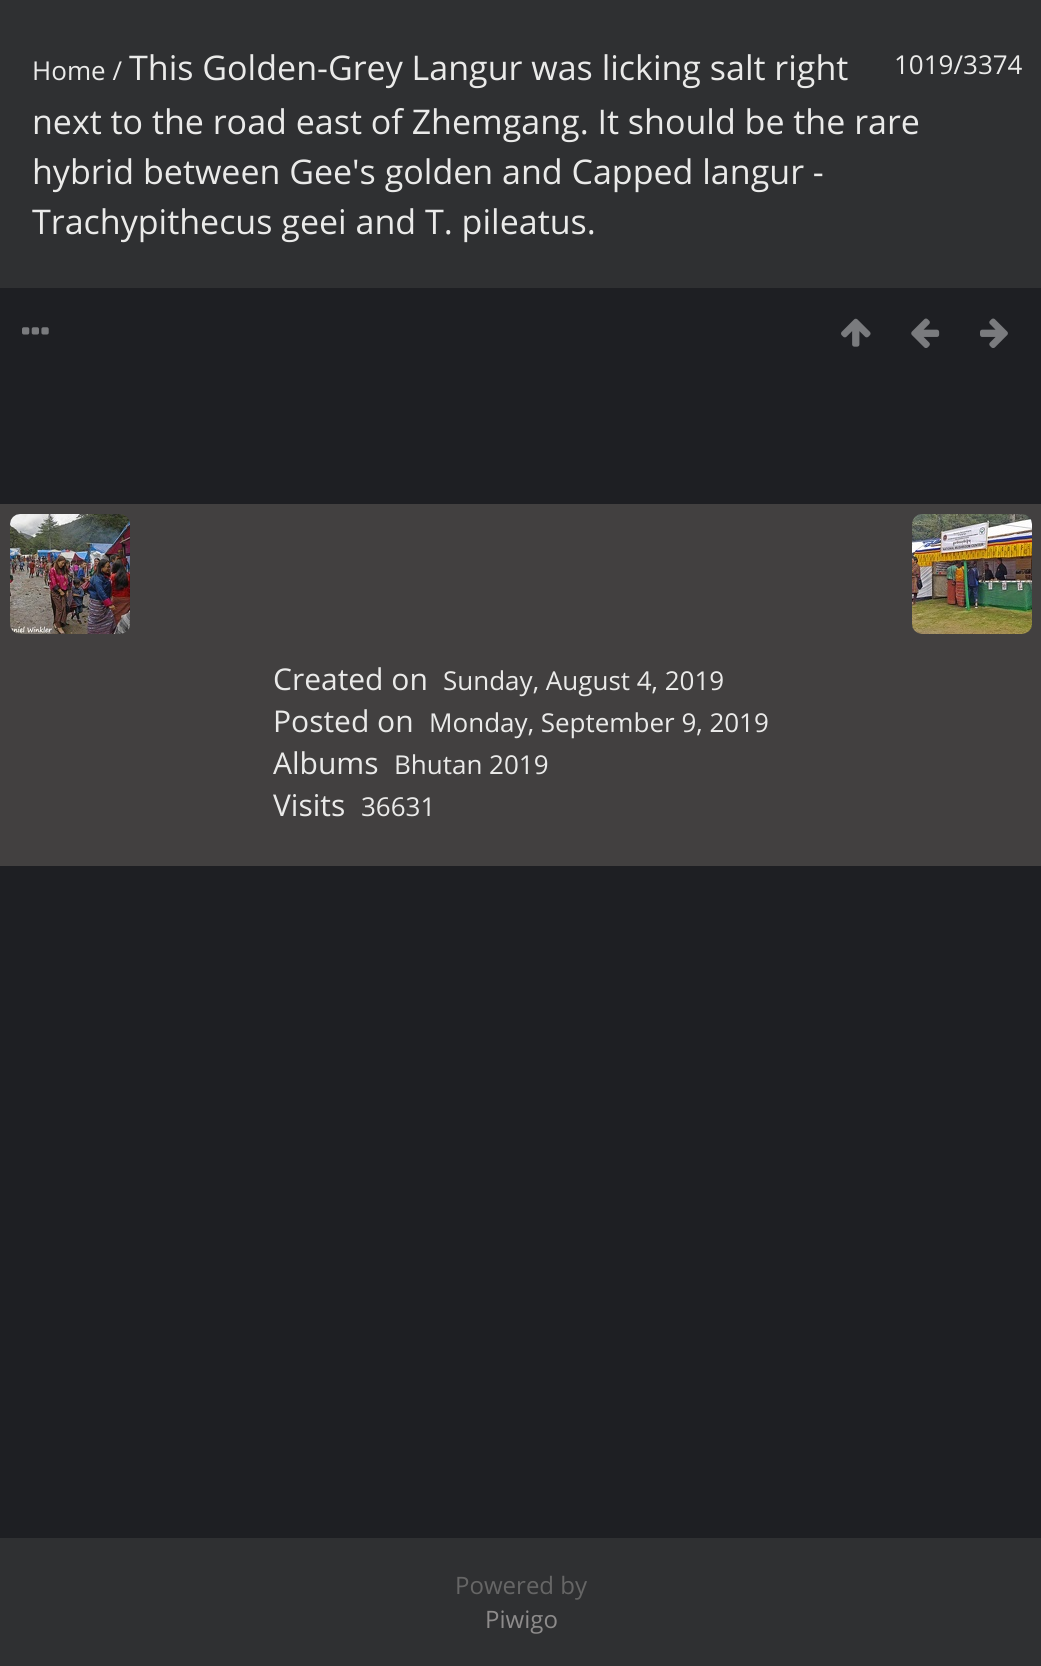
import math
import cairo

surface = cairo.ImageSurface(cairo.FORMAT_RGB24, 1041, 1666)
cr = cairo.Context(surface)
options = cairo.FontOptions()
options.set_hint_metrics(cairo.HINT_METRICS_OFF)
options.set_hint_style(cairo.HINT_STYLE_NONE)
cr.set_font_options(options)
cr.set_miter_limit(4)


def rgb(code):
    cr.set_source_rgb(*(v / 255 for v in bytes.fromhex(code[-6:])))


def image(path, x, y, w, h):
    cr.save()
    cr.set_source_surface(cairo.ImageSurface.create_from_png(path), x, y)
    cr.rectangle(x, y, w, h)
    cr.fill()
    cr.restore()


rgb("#1e1f23")
cr.paint()
rgb("#2f3032")
cr.rectangle(0, 0, 1041, 288)
cr.fill()
image("img/1.png", 22, 327, 27, 8)
image("img/2.png", 841, 318, 30, 29)
image("img/3.png", 911, 318, 29, 30)
image("img/4.png", 980, 318, 28, 30)
rgb("#424040")
cr.rectangle(0, 504, 1041, 362)
cr.fill()
image("img/5.png", 10, 514, 120, 120)
image("img/6.png", 912, 514, 120, 120)
rgb("#2f3032")
cr.rectangle(0, 1538, 1041, 128)
cr.fill()
cr.select_font_face("Open Sans")
cr.set_font_size(26)
rgb("#eaeae9")
cr.move_to(32, 80)
cr.show_text("Home /")
cr.set_font_size(34)
for x, y, s in [
    (129, 80, "This Golden-Grey Langur was licking salt right"),
    (32, 134, "next to the road east of Zhemgang. It should be the rare"),
    (32, 184, "hybrid between Gee's golden and Capped langur -"),
    (32, 234, "Trachypithecus geei and T. pileatus."),
]:
    cr.move_to(x, y)
    cr.show_text(s)
cr.set_font_size(26)
cr.move_to(894, 74)
cr.show_text("1019/3374")
cr.set_font_size(30)
cr.move_to(273, 690)
cr.show_text("Created on")
cr.set_font_size(26)
cr.move_to(443, 690)
cr.show_text("Sunday, August 4, 2019")
cr.set_font_size(30)
cr.move_to(273, 732)
cr.show_text("Posted on")
cr.set_font_size(26)
cr.move_to(429, 732)
cr.show_text("Monday, September 9, 2019")
cr.set_font_size(30)
cr.move_to(273, 774)
cr.show_text("Albums")
cr.set_font_size(26)
cr.move_to(394, 774)
cr.show_text("Bhutan 2019")
cr.set_font_size(30)
cr.move_to(273, 816)
cr.show_text("Visits")
cr.set_font_size(26)
cr.move_to(361, 816)
cr.show_text("36631")
cr.set_font_size(24)
rgb("#666666")
cr.move_to(455, 1594)
cr.show_text("Powered by")
rgb("#8d8b8b")
cr.move_to(485, 1628)
cr.show_text("Piwigo")
surface.write_to_png("page.png")
